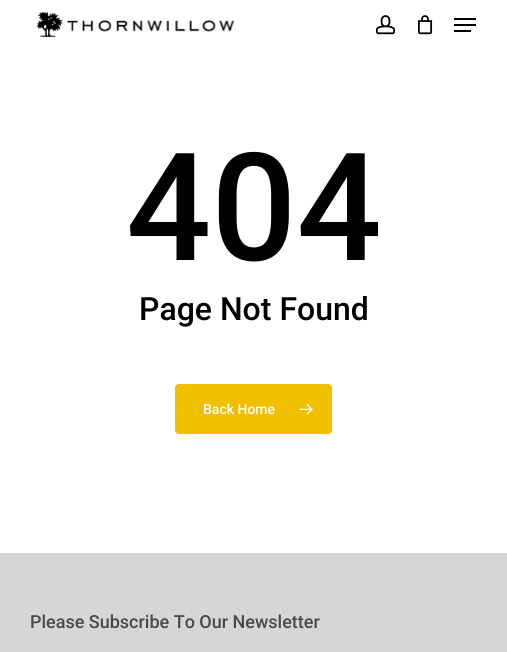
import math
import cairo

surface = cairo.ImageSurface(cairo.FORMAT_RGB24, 507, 652)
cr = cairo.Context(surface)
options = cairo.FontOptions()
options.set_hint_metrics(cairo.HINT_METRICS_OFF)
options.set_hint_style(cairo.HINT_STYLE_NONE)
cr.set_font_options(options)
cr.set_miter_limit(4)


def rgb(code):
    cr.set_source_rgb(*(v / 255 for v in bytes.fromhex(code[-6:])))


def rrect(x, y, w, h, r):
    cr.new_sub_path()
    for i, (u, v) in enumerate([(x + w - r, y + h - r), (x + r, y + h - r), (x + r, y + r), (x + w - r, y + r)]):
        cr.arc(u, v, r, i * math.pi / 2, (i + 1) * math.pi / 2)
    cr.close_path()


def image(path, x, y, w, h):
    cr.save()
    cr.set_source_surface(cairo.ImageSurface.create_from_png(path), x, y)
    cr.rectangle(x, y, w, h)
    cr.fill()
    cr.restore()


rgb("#ffffff")
cr.paint()
image("img/1.png", 36, 12, 199, 25)
image("img/2.png", 376, 15, 19, 20)
image("img/3.png", 418, 15, 15, 20)
for x, y, w, h, color in [
    (454, 18, 22, 2, "#000000"),
    (454, 30, 17, 2, "#000000"),
    (454, 24, 22, 2, "#000000"),
]:
    rgb(color)
    cr.rectangle(x, y, w, h)
    cr.fill()
rgb("#efbf00")
rrect(175, 384, 157, 50, 4)
cr.fill()
image("img/4.png", 299, 404, 14, 11)
rgb("#d6d6d6")
cr.rectangle(0, 553, 507, 99)
cr.fill()
cr.select_font_face("Roboto Medium")
cr.set_font_size(150)
rgb("#000000")
cr.move_to(126, 260)
cr.show_text("404")
cr.set_font_size(32)
cr.move_to(139, 320)
cr.show_text("Page Not Found")
cr.set_font_size(14)
rgb("#ffffff")
cr.move_to(203, 414)
cr.show_text("Back Home")
cr.set_font_size(18)
rgb("#494949")
cr.move_to(30, 628)
cr.show_text("Please Subscribe To Our Newsletter")
surface.write_to_png("page.png")
